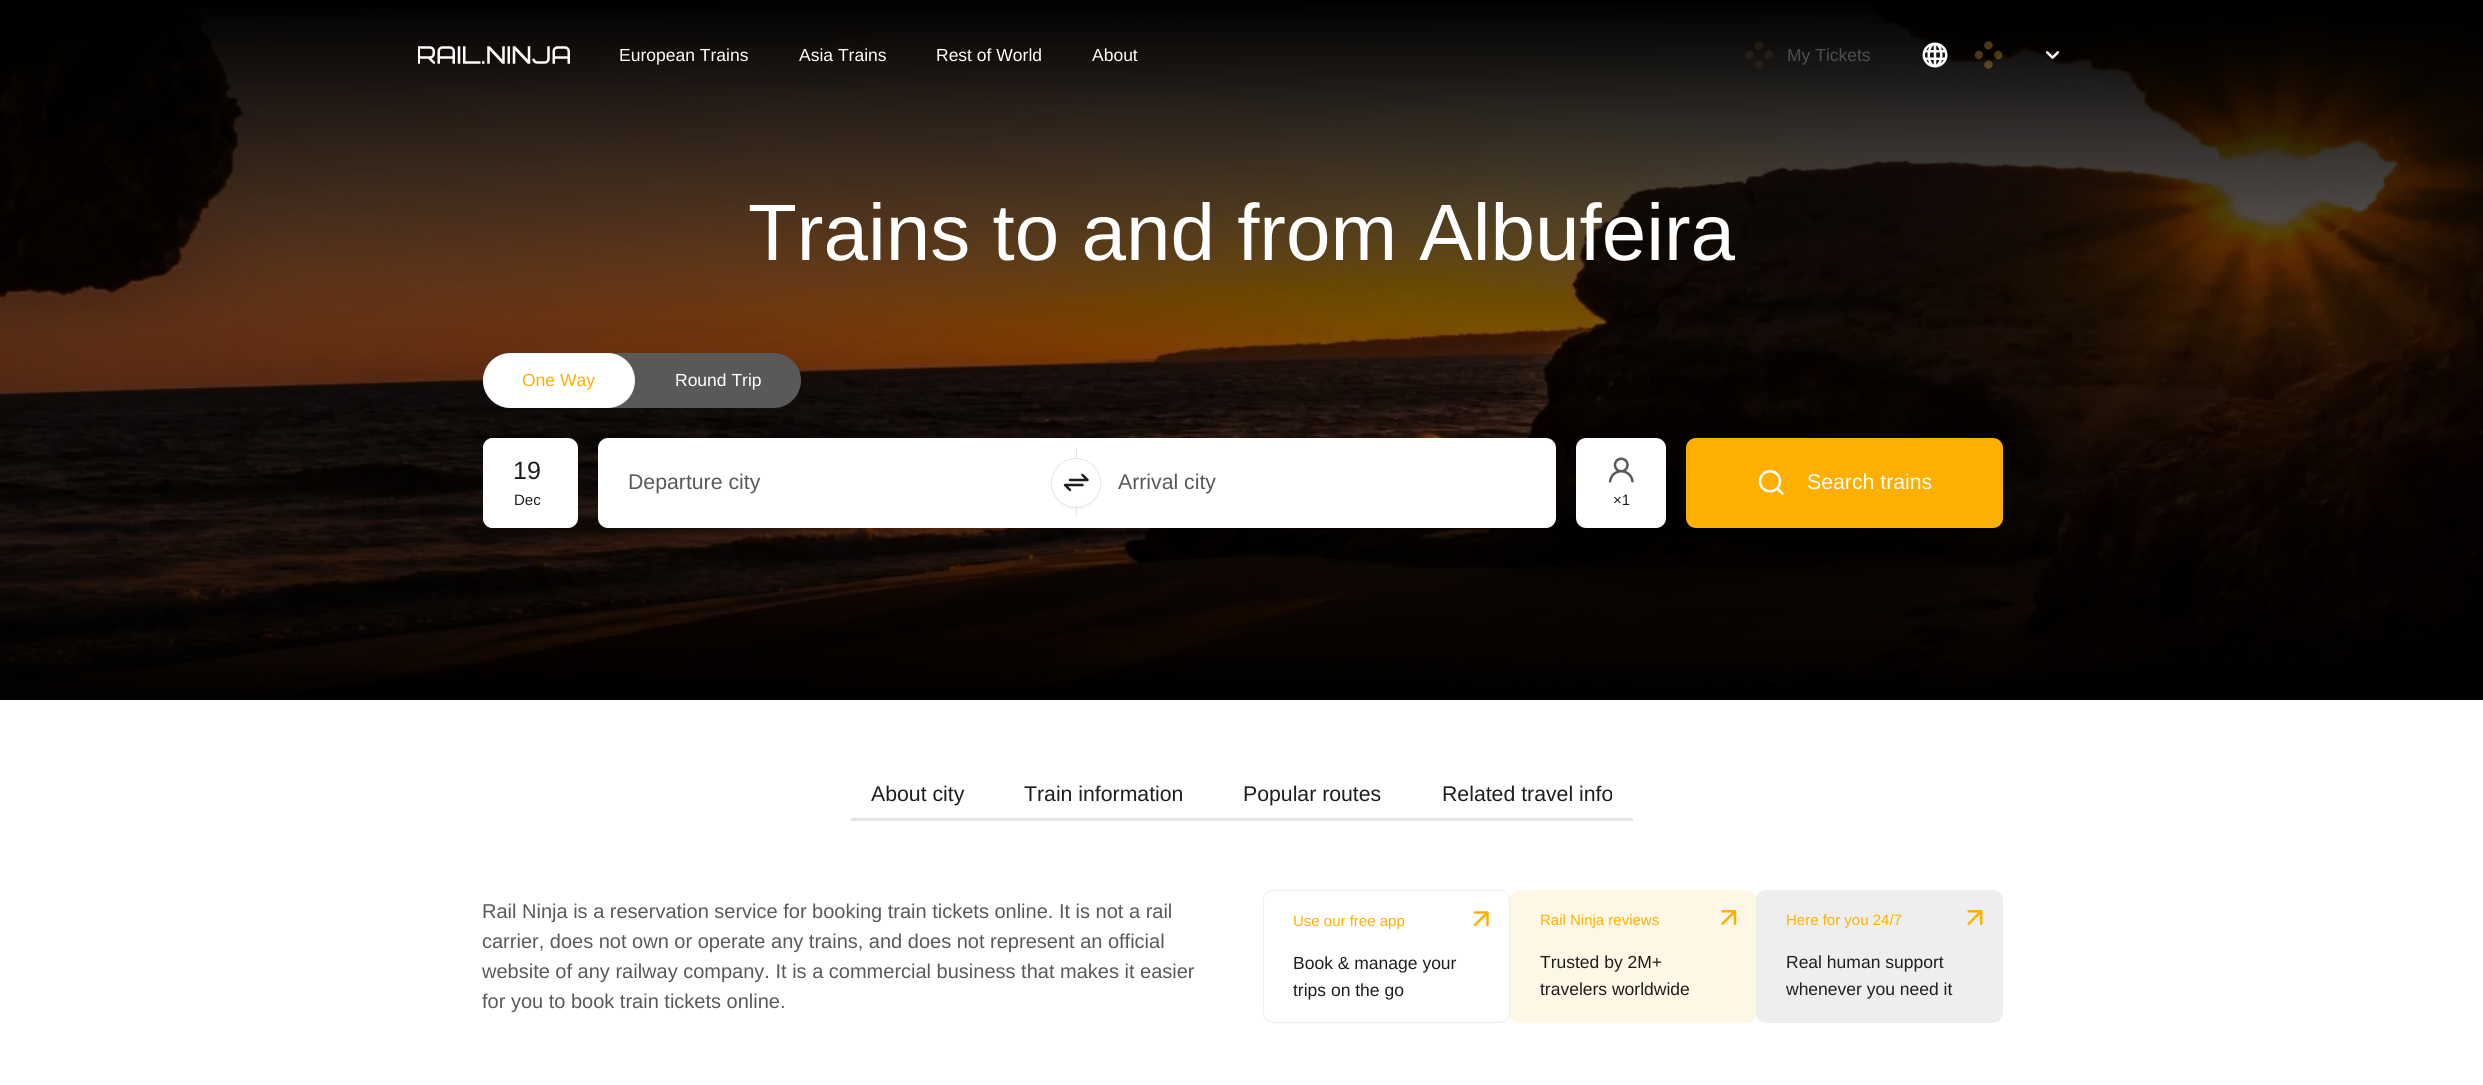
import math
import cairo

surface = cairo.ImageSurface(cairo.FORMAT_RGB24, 2483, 1085)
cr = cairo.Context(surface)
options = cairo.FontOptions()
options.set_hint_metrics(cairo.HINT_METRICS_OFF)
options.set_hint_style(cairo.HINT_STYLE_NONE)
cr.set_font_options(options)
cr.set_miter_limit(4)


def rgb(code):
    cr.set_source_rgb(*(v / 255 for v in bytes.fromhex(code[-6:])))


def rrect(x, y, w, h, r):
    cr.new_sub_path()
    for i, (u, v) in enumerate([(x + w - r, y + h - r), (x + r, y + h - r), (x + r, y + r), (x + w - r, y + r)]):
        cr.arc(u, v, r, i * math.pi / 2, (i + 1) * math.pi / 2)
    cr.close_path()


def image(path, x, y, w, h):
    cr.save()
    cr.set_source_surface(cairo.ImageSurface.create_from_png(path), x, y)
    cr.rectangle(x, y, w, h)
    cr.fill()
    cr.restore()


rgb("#ffffff")
cr.paint()
image("img/1.png", 0, 0, 2483, 700)
image("img/2.png", 418, 46, 152, 18)
cr.set_source_rgba(0.953, 0.698, 0.243, 0.07)
cr.new_path()
cr.move_to(1762, 42.5)
cr.curve_to(1766, 46, 1760, 52, 1756, 48.5)
cr.curve_to(1752.5, 44.5, 1758, 38.5, 1762, 42.5)
cr.close_path()
cr.fill()
rgb("#251f15")
cr.new_path()
cr.move_to(1752.5, 52)
cr.curve_to(1756, 56, 1750, 62, 1746.5, 58)
cr.curve_to(1742.5, 54, 1748.5, 48, 1752.5, 52)
cr.close_path()
cr.fill()
cr.new_path()
cr.move_to(1772, 52)
cr.curve_to(1775.5, 56, 1769.5, 62, 1766, 58)
cr.curve_to(1762, 54, 1768, 48, 1772, 52)
cr.close_path()
cr.fill()
cr.set_source_rgba(0.953, 0.698, 0.243, 0.07)
cr.new_path()
cr.move_to(1762, 61.5)
cr.curve_to(1766, 65.5, 1760, 71.5, 1756, 67.5)
cr.curve_to(1752.5, 64, 1758, 58, 1762, 61.5)
cr.close_path()
cr.fill()
image("img/3.png", 1922, 42, 26, 26)
rgb("#4b3713")
cr.new_path()
cr.move_to(1991.5, 42.5)
cr.curve_to(1995.5, 46, 1989.5, 52, 1985.5, 48.5)
cr.curve_to(1981.5, 44.5, 1987.5, 38.5, 1991.5, 42.5)
cr.close_path()
cr.fill()
cr.set_source_rgba(0.953, 0.698, 0.243, 0.3)
cr.new_path()
cr.move_to(2001, 52)
cr.curve_to(2005, 56, 1999, 62, 1995.5, 58)
cr.curve_to(1991.5, 54, 1997.5, 48, 2001, 52)
cr.close_path()
cr.move_to(1991.5, 61.5)
cr.curve_to(1995.5, 65.5, 1989.5, 71.5, 1985.5, 67.5)
cr.curve_to(1981.5, 64, 1987.5, 58, 1991.5, 61.5)
cr.close_path()
cr.move_to(1982, 52)
cr.curve_to(1985.5, 56, 1979.5, 62, 1976, 58)
cr.curve_to(1972, 54, 1978, 48, 1982, 52)
cr.close_path()
cr.fill()
image("img/4.png", 2046, 51, 14, 8)
rgb("#595959")
rrect(483, 353, 318, 55, 27.5)
cr.fill()
rgb("#ffffff")
rrect(483, 353, 152, 55, 27.5)
cr.fill()
rrect(483, 438, 95, 90, 10)
cr.fill()
rrect(483, 438, 90, 90, 10)
cr.fill()
cr.new_path()
cr.move_to(608, 438)
cr.line_to(1076, 438)
cr.line_to(1076, 528)
cr.line_to(608, 528)
cr.curve_to(602.5, 528, 598, 523.5, 598, 518)
cr.line_to(598, 448)
cr.curve_to(598, 442.5, 602.5, 438, 608, 438)
cr.close_path()
cr.fill()
cr.new_path()
cr.move_to(1076, 438)
cr.line_to(1546, 438)
cr.curve_to(1551.5, 438, 1556, 442.5, 1556, 448)
cr.line_to(1556, 518)
cr.curve_to(1556, 523.5, 1551.5, 528, 1546, 528)
cr.line_to(1076, 528)
cr.close_path()
cr.fill()
rgb("#fafafa")
cr.new_path()
cr.move_to(1051, 481)
cr.curve_to(1047, 507, 1081, 521, 1096, 500)
cr.curve_to(1099, 496, 1101, 491, 1101, 486)
cr.curve_to(1096, 517, 1050, 513, 1051, 481)
cr.close_path()
cr.fill()
rgb("#ffffff")
cr.arc(1076, 483, 24.5, 0, 2 * math.pi)
cr.fill_preserve()
rgb("#e5e5e5")
cr.set_line_width(1)
cr.stroke()
cr.rectangle(1076, 449, 1, 10)
cr.fill()
image("img/5.png", 1063, 473, 26, 19)
cr.rectangle(1076, 506, 1, 10)
cr.fill()
rgb("#ffaf01")
rrect(1686, 438, 317, 90, 10)
cr.fill()
image("img/6.png", 1758, 470, 26, 25)
rgb("#ffffff")
rrect(1576, 438, 90, 90, 10)
cr.fill()
image("img/7.png", 1608, 457, 26, 26)
rgb("#e5e5e5")
cr.rectangle(851, 818, 782, 3)
cr.fill()
rrect(1263.5, 890.5, 246, 132, 9.5)
rgb("#eeeeee")
cr.stroke()
image("img/8.png", 1473, 911, 16, 16)
rgb("#fff7e6")
rrect(1510, 890, 246, 133, 10)
cr.fill()
image("img/9.png", 1721, 910, 16, 15)
rgb("#eeeeee")
rrect(1756, 890, 247, 133, 10)
cr.fill()
image("img/10.png", 1967, 910, 16, 15)
cr.select_font_face("Liberation Sans")
cr.set_font_size(17.5)
rgb("#ffffff")
for x, y, s in [
    (619, 61, "European Trains"),
    (799, 61, "Asia Trains"),
    (936, 61, "Rest of World"),
    (1092, 61, "About"),
]:
    cr.move_to(x, y)
    cr.show_text(s)
rgb("#4f4e4d")
cr.move_to(1787, 61)
cr.show_text("My Tickets")
cr.set_font_size(80)
rgb("#ffffff")
cr.move_to(748, 260)
cr.show_text("Trains to and from Albufeira")
cr.save()
cr.rectangle(523, 353, 72, 55)
cr.clip()
cr.set_font_size(17.5)
rgb("#ffaf01")
cr.move_to(522, 386)
cr.show_text("One Way")
cr.restore()
cr.set_font_size(17.5)
cr.move_to(675, 386)
cr.show_text("Round Trip")
cr.set_font_size(25)
rgb("#1e1e1e")
cr.move_to(513, 479)
cr.show_text("19")
cr.set_font_size(15)
cr.move_to(514, 505)
cr.show_text("Dec")
cr.set_font_size(21.25)
rgb("#595959")
cr.move_to(628, 489)
cr.show_text("Departure city")
cr.move_to(1118, 489)
cr.show_text("Arrival city")
rgb("#ffffff")
cr.move_to(1807, 489)
cr.show_text("Search trains")
cr.set_font_size(15)
rgb("#1e1e1e")
cr.move_to(1613, 505)
cr.show_text("×1")
cr.set_font_size(21.25)
for x, y, s in [
    (871, 801, "About city"),
    (1024, 801, "Train information"),
    (1243, 801, "Popular routes"),
    (1442, 801, "Related travel info"),
]:
    cr.move_to(x, y)
    cr.show_text(s)
cr.set_font_size(20)
rgb("#595959")
for x, y, s in [
    (482, 918, "Rail Ninja is a reservation service for booking train tickets online. It is not a rail"),
    (482, 948, "carrier, does not own or operate any trains, and does not represent an official"),
    (482, 978, "website of any railway company. It is a commercial business that makes it easier"),
    (482, 1008, "for you to book train tickets online."),
]:
    cr.move_to(x, y)
    cr.show_text(s)
cr.set_font_size(15)
rgb("#ffaf01")
cr.move_to(1293, 926)
cr.show_text("Use our free app")
cr.set_font_size(17.5)
rgb("#1e1e1e")
cr.move_to(1293, 969)
cr.show_text("Book & manage your")
cr.move_to(1293, 996)
cr.show_text("trips on the go")
cr.set_font_size(15)
rgb("#ffaf01")
cr.move_to(1540, 925)
cr.show_text("Rail Ninja reviews")
cr.set_font_size(17.5)
rgb("#1e1e1e")
cr.move_to(1540, 968)
cr.show_text("Trusted by 2M+")
cr.move_to(1540, 995)
cr.show_text("travelers worldwide")
cr.set_font_size(15)
rgb("#ffaf01")
cr.move_to(1786, 925)
cr.show_text("Here for you 24/7")
cr.set_font_size(17.5)
rgb("#1e1e1e")
cr.move_to(1786, 968)
cr.show_text("Real human support")
cr.move_to(1786, 995)
cr.show_text("whenever you need it")
surface.write_to_png("page.png")
